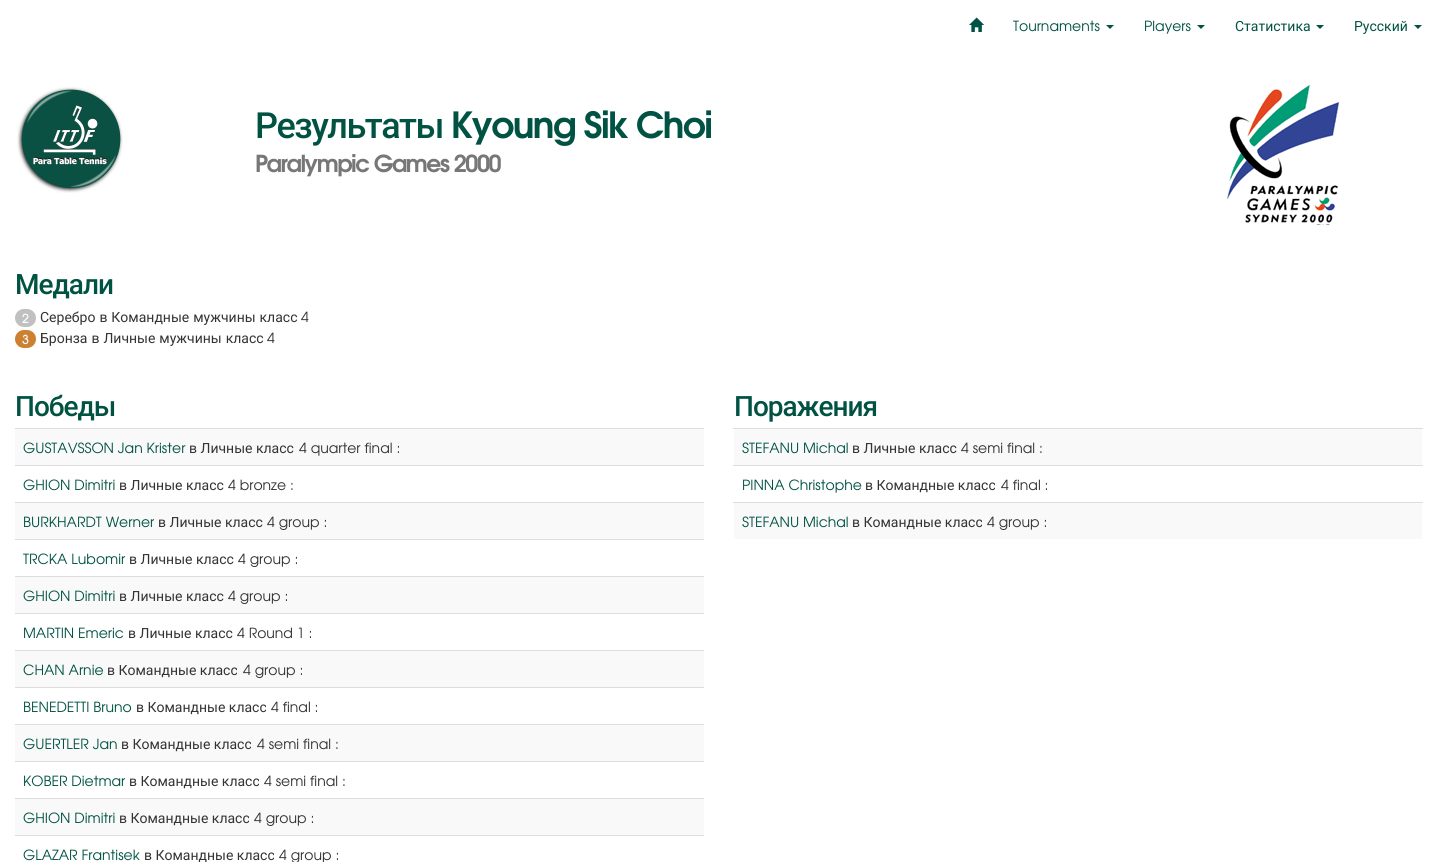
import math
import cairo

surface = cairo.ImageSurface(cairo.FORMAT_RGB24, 1437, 862)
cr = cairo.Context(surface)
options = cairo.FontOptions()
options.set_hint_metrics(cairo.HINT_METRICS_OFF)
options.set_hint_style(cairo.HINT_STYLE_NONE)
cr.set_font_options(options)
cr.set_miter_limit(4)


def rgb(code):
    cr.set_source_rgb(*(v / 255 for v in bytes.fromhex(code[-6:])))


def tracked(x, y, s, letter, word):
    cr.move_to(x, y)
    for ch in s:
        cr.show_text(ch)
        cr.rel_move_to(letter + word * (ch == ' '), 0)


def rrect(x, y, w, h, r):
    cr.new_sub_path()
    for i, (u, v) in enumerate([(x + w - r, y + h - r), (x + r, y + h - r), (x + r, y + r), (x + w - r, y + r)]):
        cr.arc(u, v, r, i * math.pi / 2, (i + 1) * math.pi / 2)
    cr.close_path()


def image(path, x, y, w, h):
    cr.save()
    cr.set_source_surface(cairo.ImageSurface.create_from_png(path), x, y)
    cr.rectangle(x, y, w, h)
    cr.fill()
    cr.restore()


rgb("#ffffff")
cr.paint()
image("img/1.png", 969, 17, 15, 15)
rgb("#005243")
cr.new_path()
cr.move_to(1106, 25)
cr.line_to(1114, 25)
cr.line_to(1110, 29)
cr.close_path()
cr.fill()
cr.new_path()
cr.move_to(1197, 25)
cr.line_to(1205, 25)
cr.line_to(1201, 29)
cr.close_path()
cr.fill()
cr.new_path()
cr.move_to(1316, 25)
cr.line_to(1324, 25)
cr.line_to(1320, 29)
cr.close_path()
cr.fill()
cr.new_path()
cr.move_to(1414, 25)
cr.line_to(1422, 25)
cr.line_to(1418, 29)
cr.close_path()
cr.fill()
image("img/2.png", 17, 87, 106, 106)
image("img/3.png", 1227, 85, 112, 140)
rgb("#c0c0c0")
rrect(15, 309, 21, 18, 9)
cr.fill()
rgb("#cd7f32")
rrect(15, 330, 21, 18, 9)
cr.fill()
for x, y, w, h, color in [
    (15, 429, 689, 36, "#f9f9f9"),
    (15, 428, 689, 1, "#dddddd"),
    (15, 465, 689, 1, "#dddddd"),
    (15, 503, 689, 36, "#f9f9f9"),
    (15, 502, 689, 1, "#dddddd"),
    (15, 539, 689, 1, "#dddddd"),
    (15, 577, 689, 36, "#f9f9f9"),
    (15, 576, 689, 1, "#dddddd"),
    (15, 613, 689, 1, "#dddddd"),
    (15, 651, 689, 36, "#f9f9f9"),
    (15, 650, 689, 1, "#dddddd"),
    (15, 687, 689, 1, "#dddddd"),
    (15, 725, 689, 36, "#f9f9f9"),
    (15, 724, 689, 1, "#dddddd"),
    (15, 761, 689, 1, "#dddddd"),
    (15, 799, 689, 36, "#f9f9f9"),
    (15, 798, 689, 1, "#dddddd"),
    (15, 835, 689, 1, "#dddddd"),
    (734, 429, 688, 36, "#f9f9f9"),
    (733, 428, 690, 1, "#dddddd"),
    (733, 465, 690, 1, "#dddddd"),
    (734, 503, 688, 36, "#f9f9f9"),
    (733, 502, 690, 1, "#dddddd"),
]:
    rgb(color)
    cr.rectangle(x, y, w, h)
    cr.fill()
cr.select_font_face("TeX Gyre Adventor")
cr.set_font_size(14)
rgb("#005243")
cr.move_to(1013, 31)
cr.show_text("Tournaments")
cr.move_to(1144, 31)
cr.show_text("Players")
cr.select_font_face("Roboto")
cr.move_to(1235, 31)
cr.show_text("Статистика")
cr.move_to(1354, 31)
cr.show_text("Русский")
cr.select_font_face("Roboto Medium")
cr.set_font_size(36)
tracked(255, 138, "Результаты", -1.5, 0)
cr.select_font_face("TeX Gyre Adventor", cairo.FONT_SLANT_NORMAL, cairo.FONT_WEIGHT_BOLD)
tracked(451, 138, "Kyoung Sik Choi", -1.5, 0)
cr.set_font_size(23.4)
rgb("#777777")
tracked(255, 172, "Paralympic Games 2000", -1.5, 0)
cr.select_font_face("Roboto Medium")
cr.set_font_size(28)
rgb("#005243")
tracked(15, 294, "Медали", -1, 0)
cr.select_font_face("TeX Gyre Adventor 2", cairo.FONT_SLANT_NORMAL, cairo.FONT_WEIGHT_BOLD)
cr.set_font_size(12)
rgb("#ffffff")
cr.move_to(22, 323)
cr.show_text("2")
cr.select_font_face("Roboto")
cr.set_font_size(14)
rgb("#333333")
tracked(40, 322, "Серебро в Командные мужчины класс", 0, 0.5)
cr.select_font_face("TeX Gyre Adventor")
cr.move_to(301, 322)
cr.show_text("4")
cr.select_font_face("TeX Gyre Adventor 2", cairo.FONT_SLANT_NORMAL, cairo.FONT_WEIGHT_BOLD)
cr.set_font_size(12)
rgb("#ffffff")
cr.move_to(22, 344)
cr.show_text("3")
cr.select_font_face("Roboto")
cr.set_font_size(14)
rgb("#333333")
tracked(40, 343, "Бронза в Личные мужчины класс", 0, 0.5)
cr.select_font_face("TeX Gyre Adventor")
cr.move_to(267, 343)
cr.show_text("4")
cr.select_font_face("Roboto Medium")
cr.set_font_size(28)
rgb("#005243")
tracked(15, 416, "Победы", -1, 0)
cr.select_font_face("TeX Gyre Adventor")
cr.set_font_size(14)
cr.move_to(23, 453)
cr.show_text("GUSTAVSSON Jan Krister")
cr.select_font_face("Roboto")
rgb("#333333")
cr.move_to(189, 453)
cr.show_text("в Личные класс")
cr.select_font_face("TeX Gyre Adventor")
cr.move_to(299, 453)
cr.show_text("4 quarter final :")
rgb("#005243")
cr.move_to(23, 490)
cr.show_text("GHION Dimitri")
cr.select_font_face("Roboto")
rgb("#333333")
cr.move_to(119, 490)
cr.show_text("в Личные класс")
cr.select_font_face("TeX Gyre Adventor")
cr.move_to(228, 490)
cr.show_text("4 bronze :")
rgb("#005243")
cr.move_to(23, 527)
cr.show_text("BURKHARDT Werner")
cr.select_font_face("Roboto")
rgb("#333333")
cr.move_to(158, 527)
cr.show_text("в Личные класс")
cr.select_font_face("TeX Gyre Adventor")
cr.move_to(267, 527)
cr.show_text("4 group :")
rgb("#005243")
cr.move_to(23, 564)
cr.show_text("TRCKA Lubomir")
cr.select_font_face("Roboto")
rgb("#333333")
cr.move_to(129, 564)
cr.show_text("в Личные класс")
cr.select_font_face("TeX Gyre Adventor")
cr.move_to(238, 564)
cr.show_text("4 group :")
rgb("#005243")
cr.move_to(23, 601)
cr.show_text("GHION Dimitri")
cr.select_font_face("Roboto")
rgb("#333333")
cr.move_to(119, 601)
cr.show_text("в Личные класс")
cr.select_font_face("TeX Gyre Adventor")
cr.move_to(228, 601)
cr.show_text("4 group :")
rgb("#005243")
cr.move_to(23, 638)
cr.show_text("MARTIN Emeric")
cr.select_font_face("Roboto")
rgb("#333333")
cr.move_to(128, 638)
cr.show_text("в Личные класс")
cr.select_font_face("TeX Gyre Adventor")
cr.move_to(237, 638)
cr.show_text("4 Round 1 :")
rgb("#005243")
cr.move_to(23, 675)
cr.show_text("CHAN Arnie")
cr.select_font_face("Roboto")
rgb("#333333")
cr.move_to(107, 675)
cr.show_text("в Командные класс")
cr.select_font_face("TeX Gyre Adventor")
cr.move_to(243, 675)
cr.show_text("4 group :")
rgb("#005243")
cr.move_to(23, 712)
cr.show_text("BENEDETTI Bruno")
cr.select_font_face("Roboto")
rgb("#333333")
cr.move_to(136, 712)
cr.show_text("в Командные класс")
cr.select_font_face("TeX Gyre Adventor")
cr.move_to(271, 712)
cr.show_text("4 final :")
rgb("#005243")
cr.move_to(23, 749)
cr.show_text("GUERTLER Jan")
cr.select_font_face("Roboto")
rgb("#333333")
cr.move_to(121, 749)
cr.show_text("в Командные класс")
cr.select_font_face("TeX Gyre Adventor")
cr.move_to(257, 749)
cr.show_text("4 semi final :")
rgb("#005243")
cr.move_to(23, 786)
cr.show_text("KOBER Dietmar")
cr.select_font_face("Roboto")
rgb("#333333")
cr.move_to(129, 786)
cr.show_text("в Командные класс")
cr.select_font_face("TeX Gyre Adventor")
cr.move_to(264, 786)
cr.show_text("4 semi final :")
rgb("#005243")
cr.move_to(23, 823)
cr.show_text("GHION Dimitri")
cr.select_font_face("Roboto")
rgb("#333333")
cr.move_to(119, 823)
cr.show_text("в Командные класс")
cr.select_font_face("TeX Gyre Adventor")
cr.move_to(254, 823)
cr.show_text("4 group :")
rgb("#005243")
cr.move_to(23, 860)
cr.show_text("GLAZAR Frantisek")
cr.select_font_face("Roboto")
rgb("#333333")
cr.move_to(144, 860)
cr.show_text("в Командные класс")
cr.select_font_face("TeX Gyre Adventor")
cr.move_to(279, 860)
cr.show_text("4 group :")
cr.select_font_face("Roboto Medium")
cr.set_font_size(28)
rgb("#005243")
tracked(734, 416, "Поражения", -1, 0)
cr.select_font_face("TeX Gyre Adventor")
cr.set_font_size(14)
cr.move_to(742, 453)
cr.show_text("STEFANU Michal")
cr.select_font_face("Roboto")
rgb("#333333")
cr.move_to(852, 453)
cr.show_text("в Личные класс")
cr.select_font_face("TeX Gyre Adventor")
cr.move_to(961, 453)
cr.show_text("4 semi final :")
rgb("#005243")
cr.move_to(742, 490)
cr.show_text("PINNA Christophe")
cr.select_font_face("Roboto")
rgb("#333333")
cr.move_to(865, 490)
cr.show_text("в Командные класс")
cr.select_font_face("TeX Gyre Adventor")
cr.move_to(1001, 490)
cr.show_text("4 final :")
rgb("#005243")
cr.move_to(742, 527)
cr.show_text("STEFANU Michal")
cr.select_font_face("Roboto")
rgb("#333333")
cr.move_to(852, 527)
cr.show_text("в Командные класс")
cr.select_font_face("TeX Gyre Adventor")
cr.move_to(987, 527)
cr.show_text("4 group :")
surface.write_to_png("page.png")
